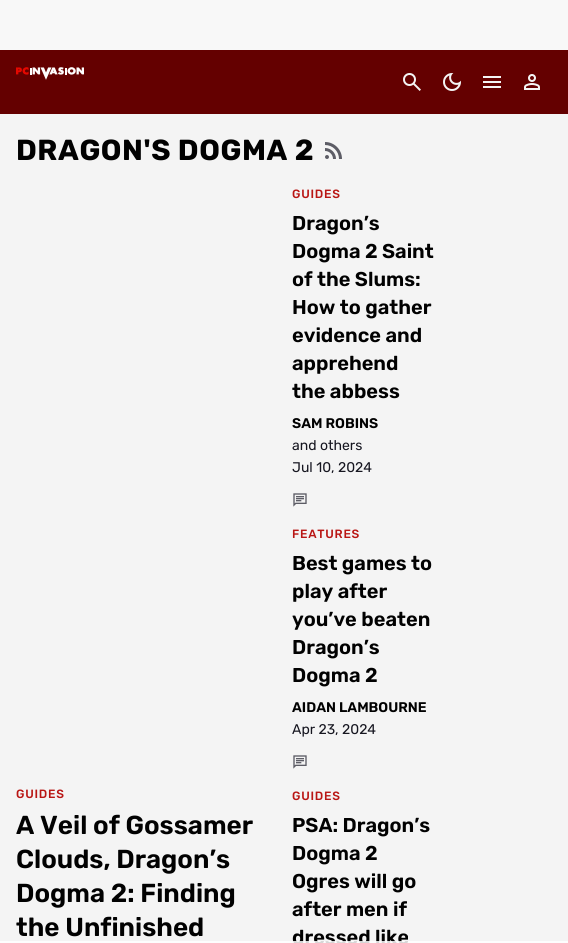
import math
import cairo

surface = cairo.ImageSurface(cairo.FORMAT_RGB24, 568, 943)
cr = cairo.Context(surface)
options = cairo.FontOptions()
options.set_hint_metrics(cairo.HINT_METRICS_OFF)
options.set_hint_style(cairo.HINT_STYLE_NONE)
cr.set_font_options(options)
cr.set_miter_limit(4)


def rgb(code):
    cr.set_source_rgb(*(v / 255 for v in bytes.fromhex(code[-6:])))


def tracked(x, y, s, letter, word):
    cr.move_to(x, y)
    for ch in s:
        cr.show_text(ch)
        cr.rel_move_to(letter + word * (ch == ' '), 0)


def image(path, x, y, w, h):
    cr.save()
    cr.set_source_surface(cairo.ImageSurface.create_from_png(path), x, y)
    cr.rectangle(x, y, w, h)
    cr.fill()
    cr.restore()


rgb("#f4f4f4")
cr.paint()
rgb("#f8f8f8")
cr.rectangle(0, 0, 568, 50)
cr.fill()
rgb("#640000")
cr.rectangle(0, 50, 568, 64)
cr.fill()
image("img/1.png", 16, 67, 68, 13)
image("img/2.png", 403, 73, 18, 18)
image("img/3.png", 443, 73, 18, 18)
image("img/4.png", 483, 76, 18, 12)
image("img/5.png", 524, 74, 16, 16)
image("img/6.png", 325, 142, 17, 17)
image("img/7.png", 293, 493, 14, 14)
image("img/7.png", 293, 755, 14, 14)
cr.select_font_face("Rubik", cairo.FONT_SLANT_NORMAL, cairo.FONT_WEIGHT_BOLD)
cr.set_font_size(29)
rgb("#010101")
tracked(16, 160, "DRAGON'S DOGMA 2", 0.6, 0)
cr.select_font_face("Rubik Medium")
cr.set_font_size(12)
rgb("#b91614")
tracked(16, 798, "GUIDES", 0.75, 0)
cr.select_font_face("Rubik SemiBold")
cr.set_font_size(26)
rgb("#010101")
for x, y, s in [
    (16, 834, "A Veil of Gossamer"),
    (16, 868, "Clouds, Dragon’s"),
    (16, 902, "Dogma 2: Finding"),
    (16, 936, "the Unfinished"),
]:
    cr.move_to(x, y)
    cr.show_text(s)
cr.select_font_face("Rubik Medium")
cr.set_font_size(12)
rgb("#b91614")
tracked(292, 198, "GUIDES", 0.75, 0)
cr.select_font_face("Rubik SemiBold")
cr.set_font_size(20)
rgb("#010101")
for x, y, s in [
    (292, 230, "Dragon’s"),
    (292, 258, "Dogma 2 Saint"),
    (292, 286, "of the Slums:"),
    (292, 314, "How to gather"),
    (292, 342, "evidence and"),
    (292, 370, "apprehend"),
    (292, 398, "the abbess"),
]:
    cr.move_to(x, y)
    cr.show_text(s)
cr.set_font_size(14)
cr.move_to(292, 428)
cr.show_text("SAM ROBINS")
cr.select_font_face("Rubik")
rgb("#161620")
cr.move_to(292, 450)
cr.show_text("and others")
cr.move_to(292, 472)
cr.show_text("Jul 10, 2024")
cr.select_font_face("Rubik Medium")
cr.set_font_size(12)
rgb("#b91614")
tracked(292, 538, "FEATURES", 0.75, 0)
cr.select_font_face("Rubik SemiBold")
cr.set_font_size(20)
rgb("#010101")
for x, y, s in [
    (292, 570, "Best games to"),
    (292, 598, "play after"),
    (292, 626, "you’ve beaten"),
    (292, 654, "Dragon’s"),
    (292, 682, "Dogma 2"),
]:
    cr.move_to(x, y)
    cr.show_text(s)
cr.set_font_size(14)
cr.move_to(292, 712)
cr.show_text("AIDAN LAMBOURNE")
cr.select_font_face("Rubik")
rgb("#161620")
cr.move_to(292, 734)
cr.show_text("Apr 23, 2024")
cr.select_font_face("Rubik Medium")
cr.set_font_size(12)
rgb("#b91614")
tracked(292, 800, "GUIDES", 0.75, 0)
cr.select_font_face("Rubik SemiBold")
cr.set_font_size(20)
rgb("#010101")
for x, y, s in [
    (292, 832, "PSA: Dragon’s"),
    (292, 860, "Dogma 2"),
    (292, 888, "Ogres will go"),
    (292, 916, "after men if"),
    (292, 944, "dressed like"),
]:
    cr.move_to(x, y)
    cr.show_text(s)
cr.set_source_rgba(1, 1, 1, 0.8)
cr.rectangle(0, 941, 568, 2)
cr.fill()
cr.set_source_rgba(1, 1, 1, 0.2)
cr.rectangle(293, 941, 115, 2)
cr.fill()
surface.write_to_png("page.png")
